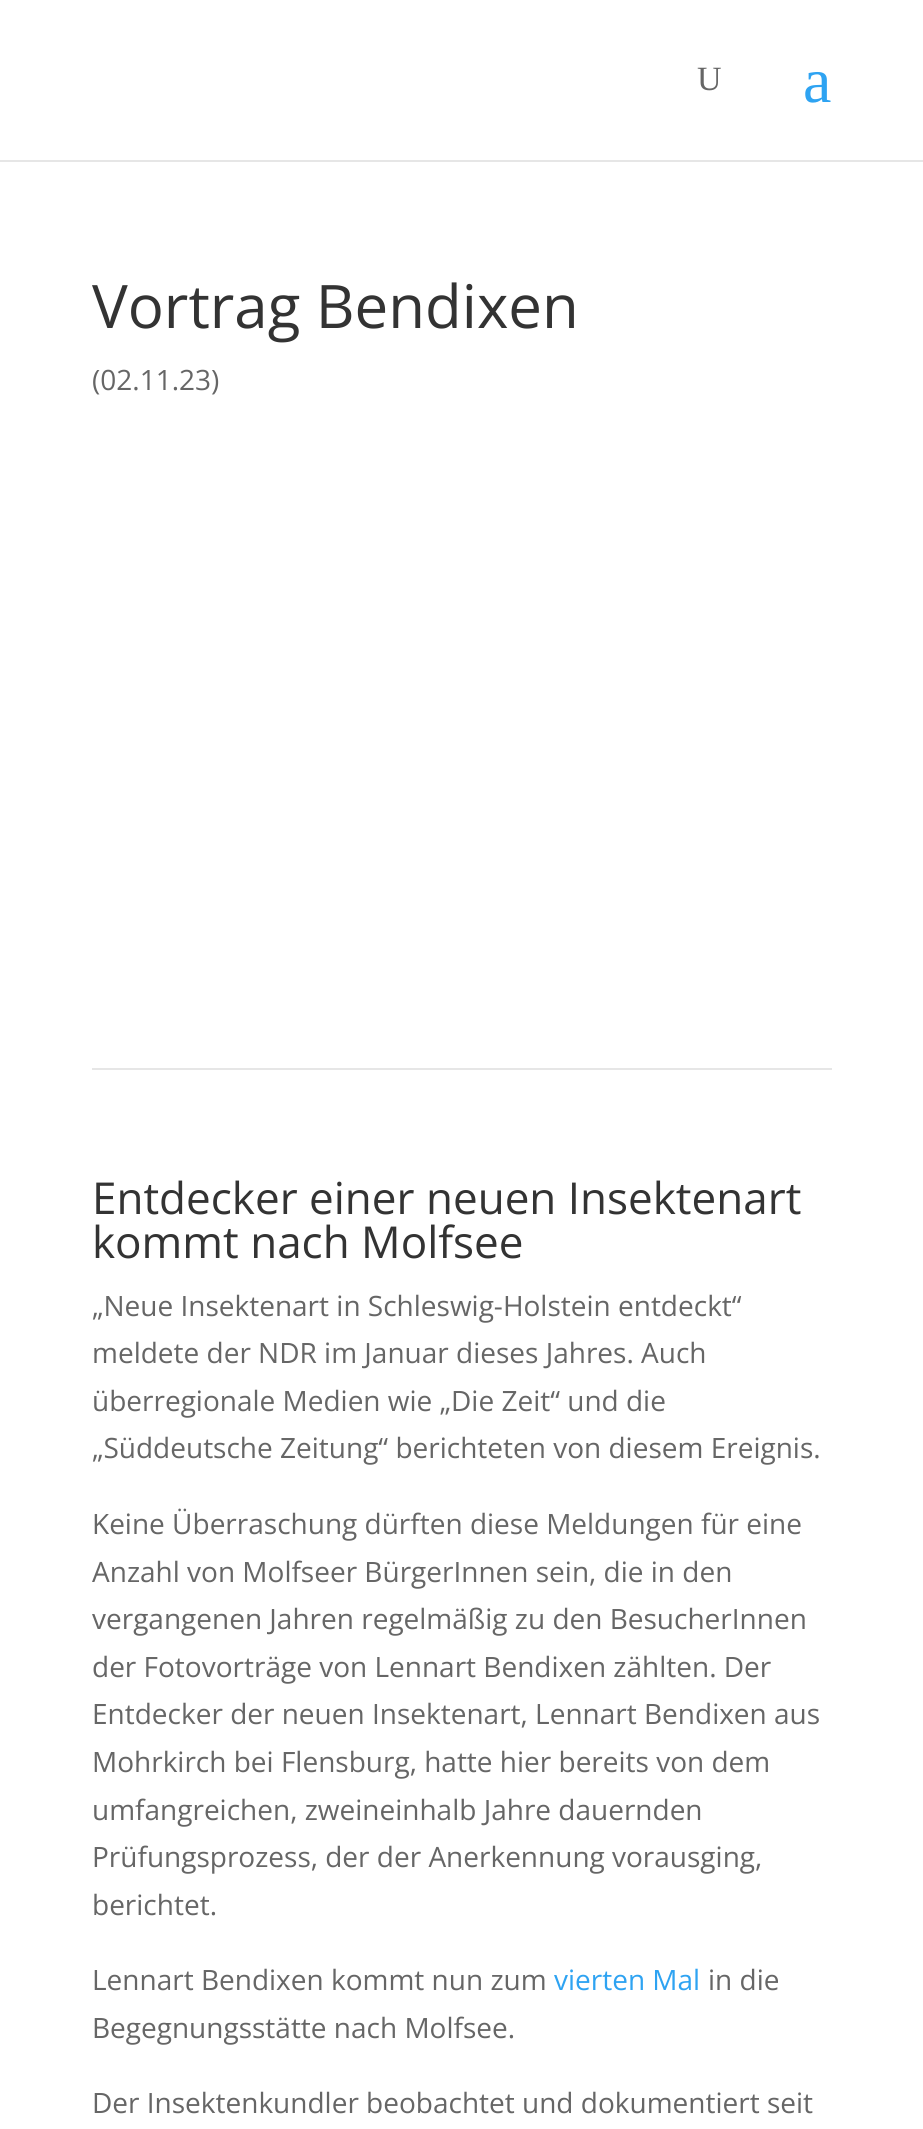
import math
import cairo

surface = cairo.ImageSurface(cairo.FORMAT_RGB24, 923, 2129)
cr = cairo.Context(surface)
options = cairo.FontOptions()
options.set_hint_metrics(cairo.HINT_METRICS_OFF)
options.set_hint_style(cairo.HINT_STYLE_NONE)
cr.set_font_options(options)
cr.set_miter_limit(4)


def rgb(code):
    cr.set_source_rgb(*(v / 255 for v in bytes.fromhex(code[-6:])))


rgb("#ffffff")
cr.paint()
rgb("#e6e6e6")
cr.rectangle(0, 160, 923, 2)
cr.fill()
cr.rectangle(92, 1068, 740, 2)
cr.fill()
cr.select_font_face("Liberation Serif")
cr.set_font_size(34)
rgb("#666666")
cr.move_to(697, 90)
cr.show_text("U")
cr.set_font_size(64)
rgb("#2ea3f2")
cr.move_to(803, 102)
cr.show_text("a")
cr.select_font_face("Open Sans")
cr.set_font_size(60)
rgb("#333333")
cr.move_to(92, 328)
cr.show_text("Vortrag Bendixen")
cr.set_font_size(28)
rgb("#666666")
cr.move_to(92, 390)
cr.show_text("(02.11.23)")
cr.set_font_size(44)
rgb("#333333")
cr.move_to(92, 1214)
cr.show_text("Entdecker einer neuen Insektenart")
cr.move_to(92, 1258)
cr.show_text("kommt nach Molfsee")
cr.set_font_size(28)
rgb("#666666")
for x, y, s in [
    (92, 1316, "„Neue Insektenart in Schleswig-Holstein entdeckt“"),
    (92, 1363, "meldete der NDR im Januar dieses Jahres. Auch"),
    (92, 1411, "überregionale Medien wie „Die Zeit“ und die"),
    (92, 1458, "„Süddeutsche Zeitung“ berichteten von diesem Ereignis."),
    (92, 1534, "Keine Überraschung dürften diese Meldungen für eine"),
    (92, 1582, "Anzahl von Molfseer BürgerInnen sein, die in den"),
    (92, 1629, "vergangenen Jahren regelmäßig zu den BesucherInnen"),
    (92, 1677, "der Fotovorträge von Lennart Bendixen zählten. Der"),
    (92, 1724, "Entdecker der neuen Insektenart, Lennart Bendixen aus"),
    (92, 1772, "Mohrkirch bei Flensburg, hatte hier bereits von dem"),
    (92, 1820, "umfangreichen, zweineinhalb Jahre dauernden"),
    (92, 1867, "Prüfungsprozess, der der Anerkennung vorausging,"),
    (92, 1915, "berichtet."),
    (92, 1990, "Lennart Bendixen kommt nun zum"),
]:
    cr.move_to(x, y)
    cr.show_text(s)
rgb("#2ea3f2")
cr.move_to(554, 1990)
cr.show_text("vierten Mal")
rgb("#666666")
for x, y, s in [
    (708, 1990, "in die"),
    (92, 2038, "Begegnungsstätte nach Molfsee."),
    (92, 2113, "Der Insektenkundler beobachtet und dokumentiert seit"),
]:
    cr.move_to(x, y)
    cr.show_text(s)
surface.write_to_png("page.png")
